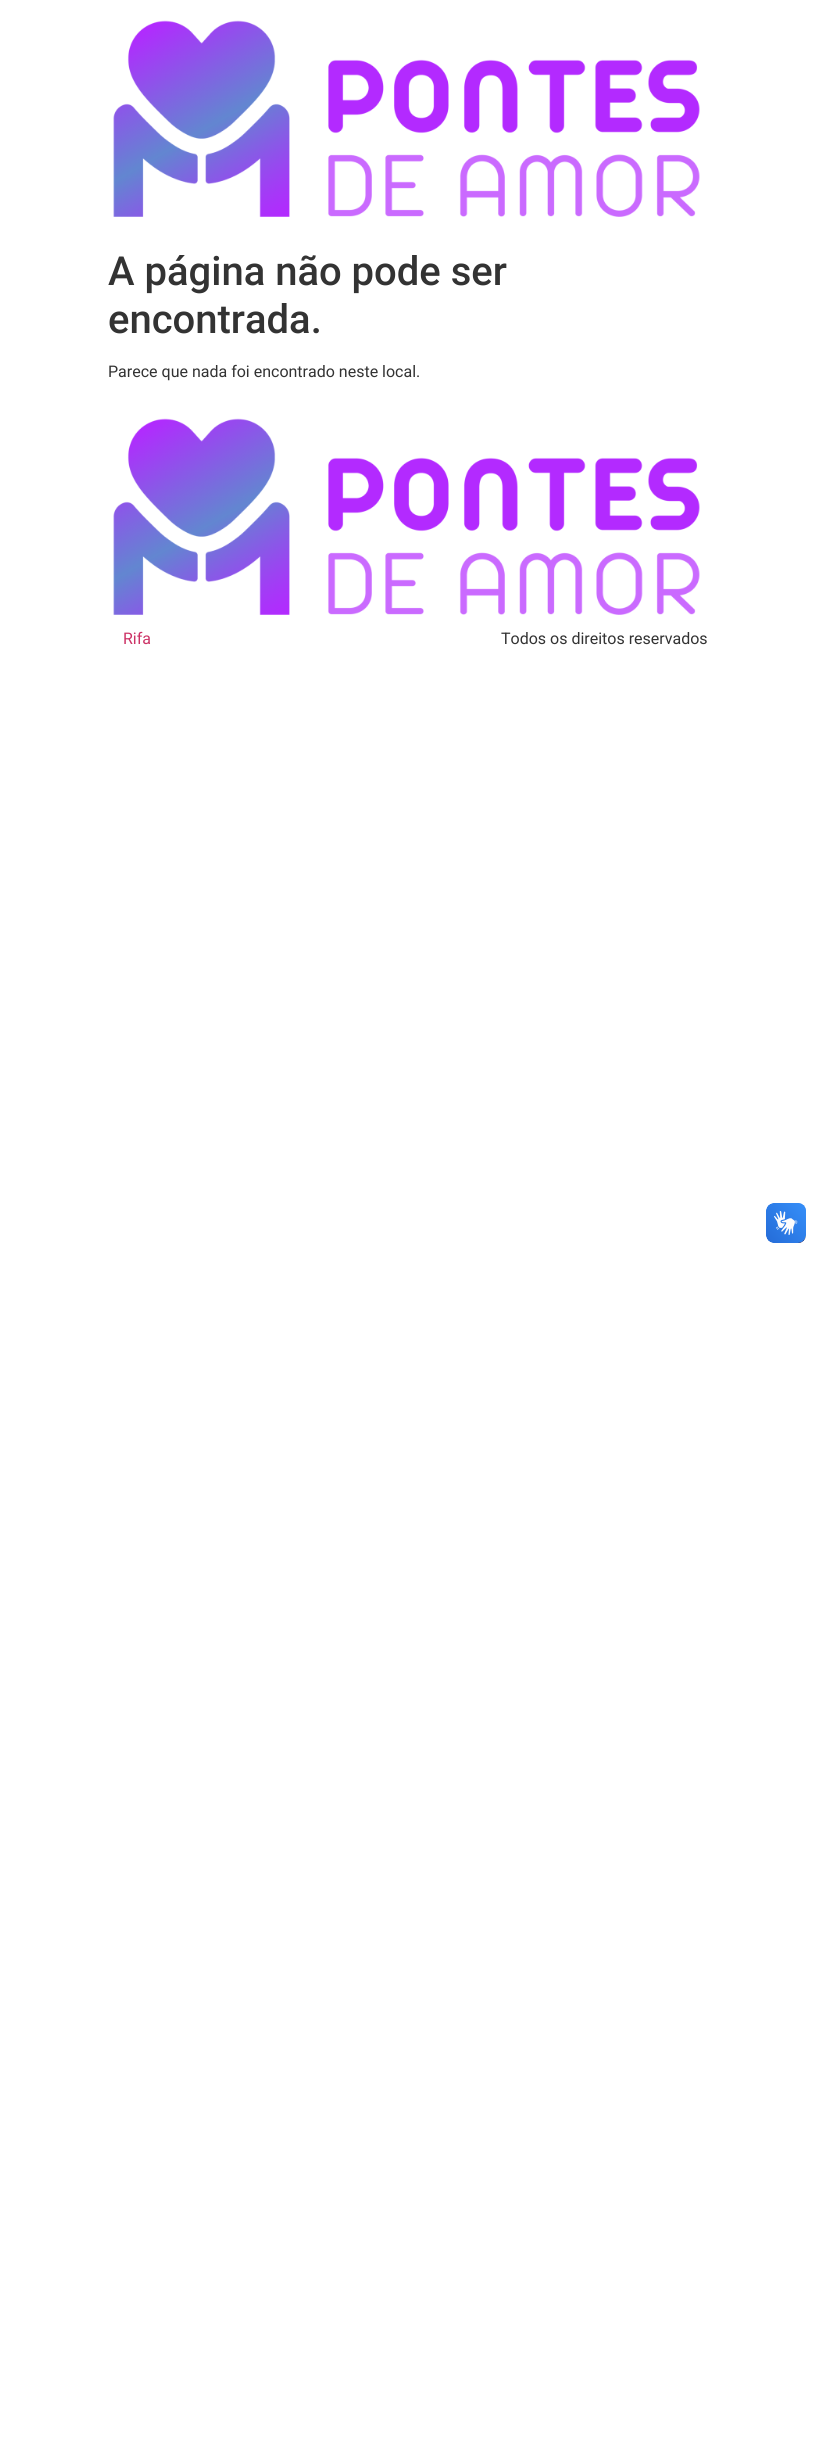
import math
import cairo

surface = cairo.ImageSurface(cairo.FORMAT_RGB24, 816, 2446)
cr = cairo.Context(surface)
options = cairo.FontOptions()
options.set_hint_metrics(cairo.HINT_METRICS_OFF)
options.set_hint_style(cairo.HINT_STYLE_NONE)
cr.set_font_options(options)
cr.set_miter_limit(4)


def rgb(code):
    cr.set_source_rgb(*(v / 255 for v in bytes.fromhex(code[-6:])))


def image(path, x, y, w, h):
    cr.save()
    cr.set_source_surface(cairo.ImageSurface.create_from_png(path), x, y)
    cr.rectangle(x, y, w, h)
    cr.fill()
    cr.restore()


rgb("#ffffff")
cr.paint()
image("img/1.png", 113, 20, 587, 197)
image("img/2.png", 113, 418, 587, 197)
image("img/3.png", 766, 1203, 40, 40)
image("img/4.png", 766, 1203, 40, 40)
cr.select_font_face("Roboto Medium")
cr.set_font_size(40)
rgb("#333333")
cr.move_to(108, 285)
cr.show_text("A página não pode ser")
cr.move_to(108, 333)
cr.show_text("encontrada.")
cr.select_font_face("Roboto")
cr.set_font_size(16)
cr.move_to(108, 377)
cr.show_text("Parece que nada foi encontrado neste local.")
rgb("#cc3366")
cr.move_to(123, 644)
cr.show_text("Rifa")
rgb("#333333")
cr.move_to(501, 644)
cr.show_text("Todos os direitos reservados")
surface.write_to_png("page.png")
